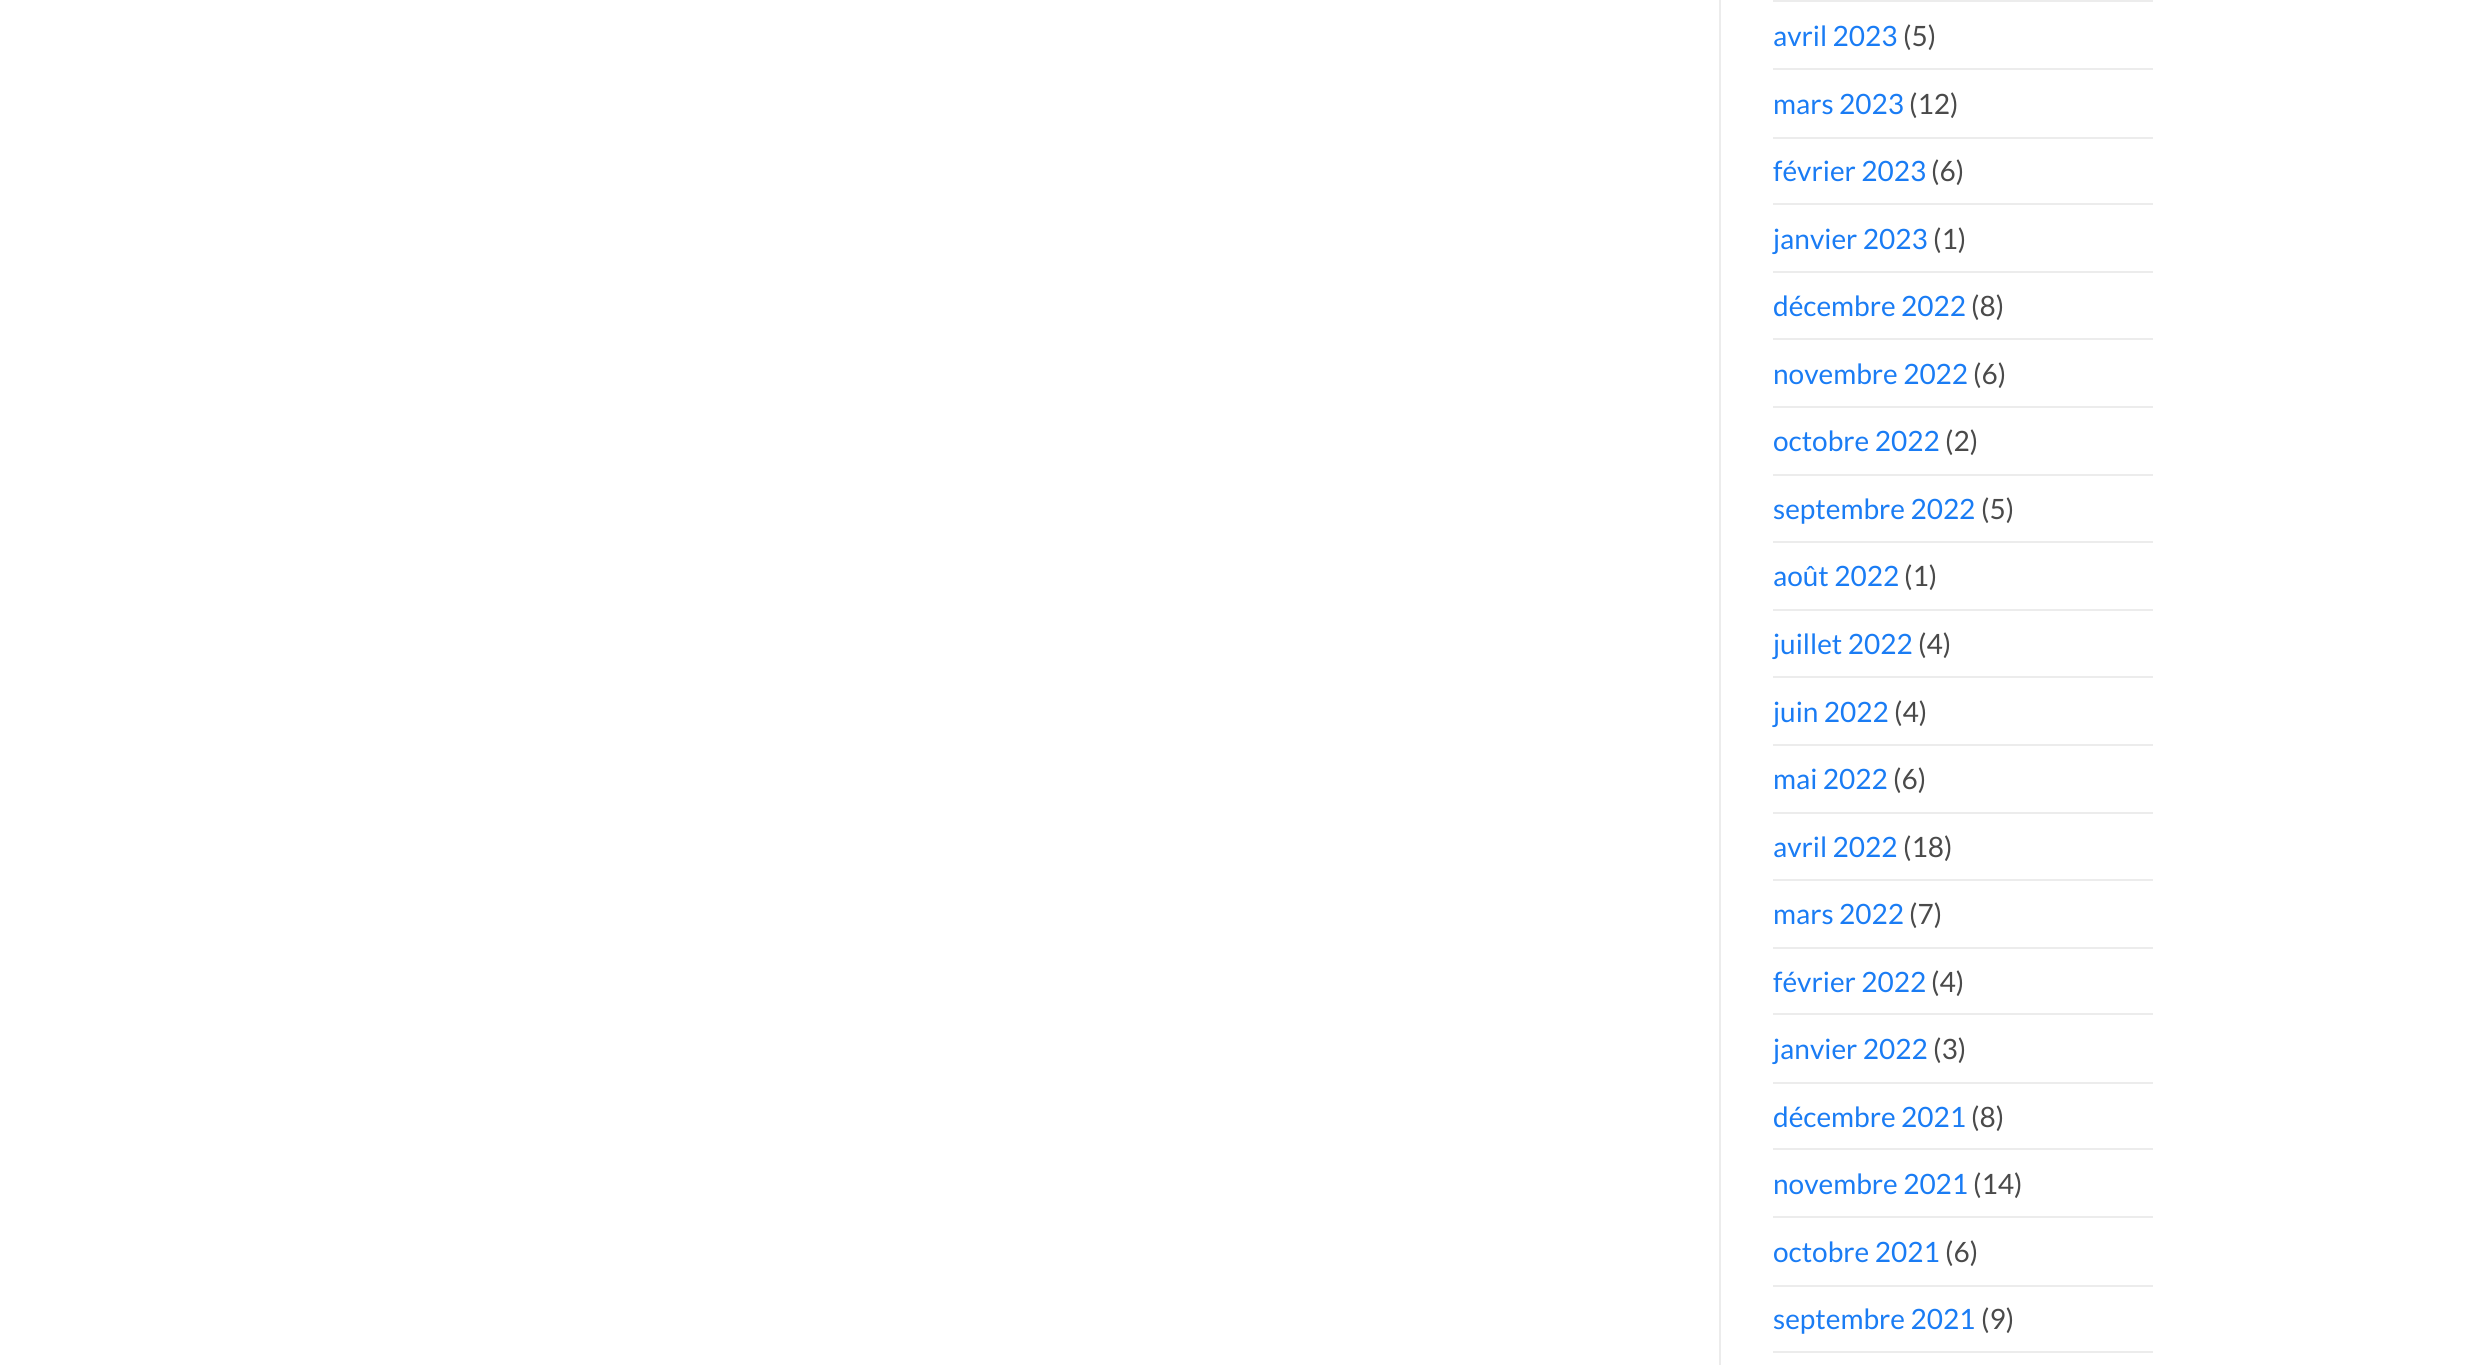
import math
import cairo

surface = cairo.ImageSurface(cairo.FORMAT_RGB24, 2465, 1365)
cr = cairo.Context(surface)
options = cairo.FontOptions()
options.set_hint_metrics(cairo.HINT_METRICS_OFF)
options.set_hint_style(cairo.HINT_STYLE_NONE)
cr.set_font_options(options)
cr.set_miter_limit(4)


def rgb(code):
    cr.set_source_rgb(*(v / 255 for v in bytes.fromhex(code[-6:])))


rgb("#ffffff")
cr.paint()
for x, y, w, h, color in [
    (1719, 0, 2, 1365, "#ececec"),
    (1773, 0, 380, 2, "#ececec"),
    (1773, 68, 380, 2, "#ececec"),
    (1773, 137, 380, 2, "#ececec"),
    (1773, 203, 380, 2, "#ececec"),
    (1773, 271, 380, 2, "#ececec"),
    (1773, 338, 380, 2, "#ececec"),
    (1773, 406, 380, 2, "#ececec"),
    (1773, 474, 380, 2, "#ececec"),
    (1773, 541, 380, 2, "#ececec"),
    (1773, 609, 380, 2, "#ececec"),
    (1773, 676, 380, 2, "#ececec"),
    (1773, 744, 380, 2, "#ececec"),
    (1773, 812, 380, 2, "#ececec"),
    (1773, 879, 380, 2, "#ececec"),
    (1773, 947, 380, 2, "#ececec"),
    (1773, 1013, 380, 2, "#ececec"),
    (1773, 1082, 380, 2, "#ececec"),
    (1773, 1148, 380, 2, "#ececec"),
    (1773, 1216, 380, 2, "#ececec"),
    (1773, 1285, 380, 2, "#ececec"),
    (1773, 1351, 380, 2, "#ececec"),
]:
    rgb(color)
    cr.rectangle(x, y, w, h)
    cr.fill()
cr.select_font_face("Lato")
cr.set_font_size(28)
rgb("#1a7cf4")
cr.move_to(1773, 46)
cr.show_text("avril 2023")
rgb("#4a4a4a")
cr.move_to(1903, 46)
cr.show_text("(5)")
rgb("#1a7cf4")
cr.move_to(1773, 114)
cr.show_text("mars 2023")
rgb("#4a4a4a")
cr.move_to(1909, 114)
cr.show_text("(12)")
rgb("#1a7cf4")
cr.move_to(1773, 181)
cr.show_text("février 2023")
rgb("#4a4a4a")
cr.move_to(1931, 181)
cr.show_text("(6)")
rgb("#1a7cf4")
cr.move_to(1773, 249)
cr.show_text("janvier 2023")
rgb("#4a4a4a")
cr.move_to(1933, 249)
cr.show_text("(1)")
rgb("#1a7cf4")
cr.move_to(1773, 316)
cr.show_text("décembre 2022")
rgb("#4a4a4a")
cr.move_to(1971, 316)
cr.show_text("(8)")
rgb("#1a7cf4")
cr.move_to(1773, 384)
cr.show_text("novembre 2022")
rgb("#4a4a4a")
cr.move_to(1973, 384)
cr.show_text("(6)")
rgb("#1a7cf4")
cr.move_to(1773, 451)
cr.show_text("octobre 2022")
rgb("#4a4a4a")
cr.move_to(1945, 451)
cr.show_text("(2)")
rgb("#1a7cf4")
cr.move_to(1773, 519)
cr.show_text("septembre 2022")
rgb("#4a4a4a")
cr.move_to(1981, 519)
cr.show_text("(5)")
rgb("#1a7cf4")
cr.move_to(1773, 586)
cr.show_text("août 2022")
rgb("#4a4a4a")
cr.move_to(1904, 586)
cr.show_text("(1)")
rgb("#1a7cf4")
cr.move_to(1773, 654)
cr.show_text("juillet 2022")
rgb("#4a4a4a")
cr.move_to(1918, 654)
cr.show_text("(4)")
rgb("#1a7cf4")
cr.move_to(1773, 722)
cr.show_text("juin 2022")
rgb("#4a4a4a")
cr.move_to(1894, 722)
cr.show_text("(4)")
rgb("#1a7cf4")
cr.move_to(1773, 789)
cr.show_text("mai 2022")
rgb("#4a4a4a")
cr.move_to(1893, 789)
cr.show_text("(6)")
rgb("#1a7cf4")
cr.move_to(1773, 857)
cr.show_text("avril 2022")
rgb("#4a4a4a")
cr.move_to(1903, 857)
cr.show_text("(18)")
rgb("#1a7cf4")
cr.move_to(1773, 924)
cr.show_text("mars 2022")
rgb("#4a4a4a")
cr.move_to(1909, 924)
cr.show_text("(7)")
rgb("#1a7cf4")
cr.move_to(1773, 992)
cr.show_text("février 2022")
rgb("#4a4a4a")
cr.move_to(1931, 992)
cr.show_text("(4)")
rgb("#1a7cf4")
cr.move_to(1773, 1059)
cr.show_text("janvier 2022")
rgb("#4a4a4a")
cr.move_to(1933, 1059)
cr.show_text("(3)")
rgb("#1a7cf4")
cr.move_to(1773, 1127)
cr.show_text("décembre 2021")
rgb("#4a4a4a")
cr.move_to(1971, 1127)
cr.show_text("(8)")
rgb("#1a7cf4")
cr.move_to(1773, 1194)
cr.show_text("novembre 2021")
rgb("#4a4a4a")
cr.move_to(1973, 1194)
cr.show_text("(14)")
rgb("#1a7cf4")
cr.move_to(1773, 1262)
cr.show_text("octobre 2021")
rgb("#4a4a4a")
cr.move_to(1945, 1262)
cr.show_text("(6)")
rgb("#1a7cf4")
cr.move_to(1773, 1329)
cr.show_text("septembre 2021")
rgb("#4a4a4a")
cr.move_to(1981, 1329)
cr.show_text("(9)")
surface.write_to_png("page.png")
